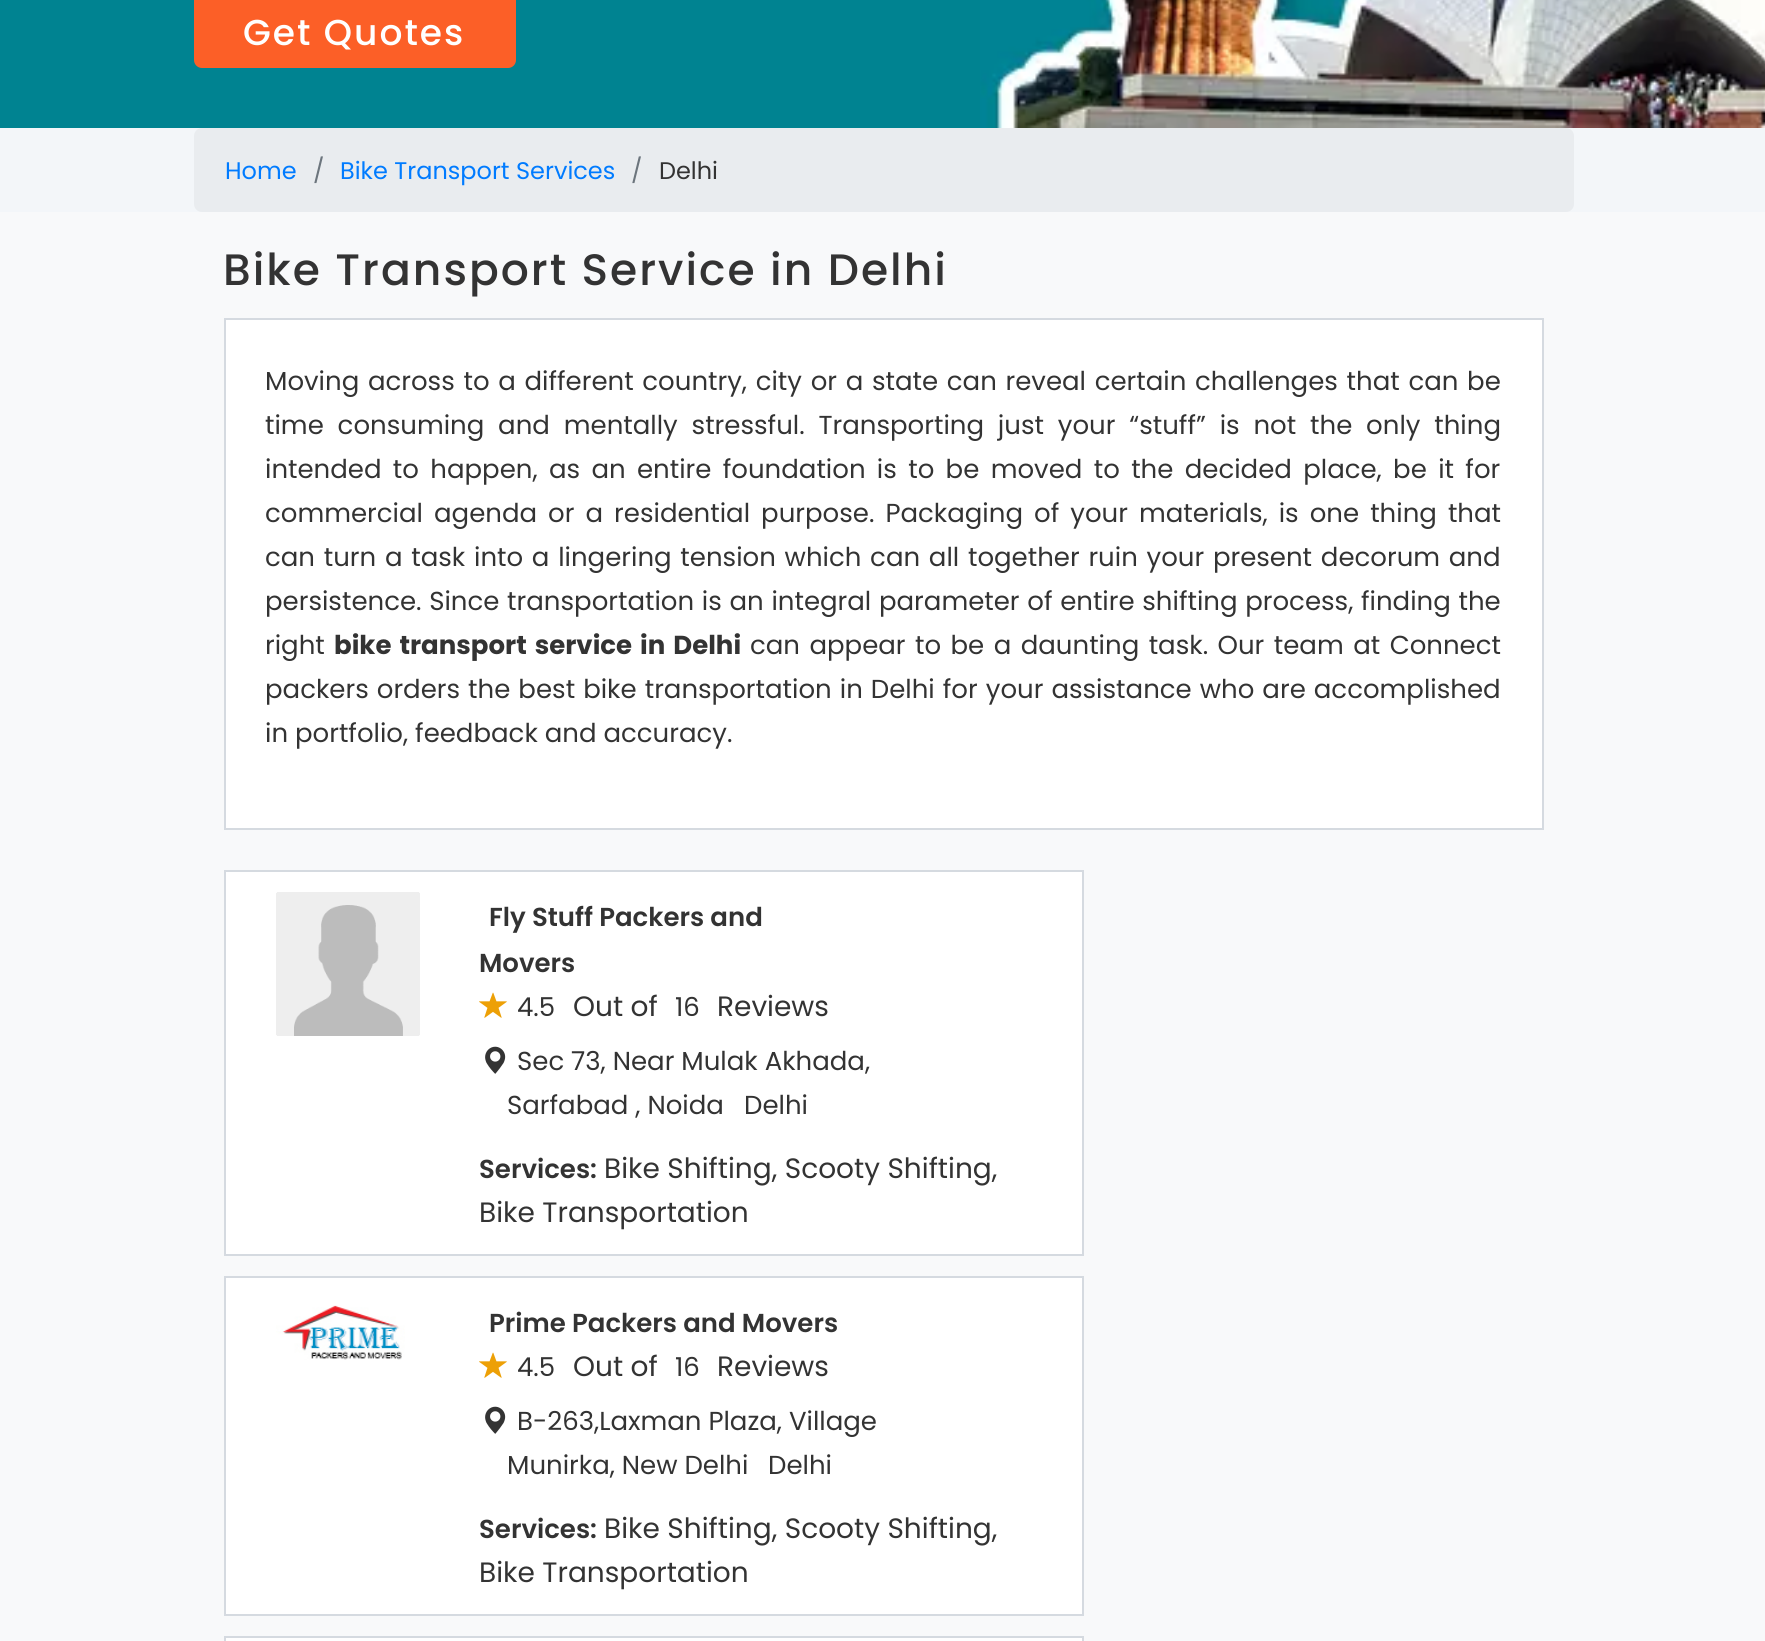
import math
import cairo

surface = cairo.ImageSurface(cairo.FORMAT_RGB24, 1765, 1641)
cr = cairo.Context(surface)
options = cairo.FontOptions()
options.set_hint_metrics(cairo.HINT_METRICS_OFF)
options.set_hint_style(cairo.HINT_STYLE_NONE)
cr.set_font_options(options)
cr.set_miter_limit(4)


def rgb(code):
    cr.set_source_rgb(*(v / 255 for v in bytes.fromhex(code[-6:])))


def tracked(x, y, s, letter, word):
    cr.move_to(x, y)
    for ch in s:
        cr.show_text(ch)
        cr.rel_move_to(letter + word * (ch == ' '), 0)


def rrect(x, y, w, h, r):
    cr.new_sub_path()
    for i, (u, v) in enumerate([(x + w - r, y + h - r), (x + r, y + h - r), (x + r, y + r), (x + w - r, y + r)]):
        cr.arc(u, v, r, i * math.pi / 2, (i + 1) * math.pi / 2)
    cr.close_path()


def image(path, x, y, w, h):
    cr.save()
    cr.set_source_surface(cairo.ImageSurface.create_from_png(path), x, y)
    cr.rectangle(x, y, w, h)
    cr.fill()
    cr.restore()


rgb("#f8f9fa")
cr.paint()
rgb("#008391")
cr.rectangle(0, 0, 980, 128)
cr.fill()
image("img/1.png", 980, 0, 785, 128)
rgb("#fc5f27")
rrect(194, -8, 322, 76, 8)
cr.fill()
rgb("#f3f6f9")
cr.rectangle(0, 128, 1765, 84)
cr.fill()
rgb("#e9ecef")
rrect(194, 128, 1380, 84, 8)
cr.fill()
rgb("#ffffff")
cr.rectangle(225, 319, 1318, 510)
cr.fill_preserve()
rgb("#d5dae0")
cr.stroke()
rgb("#ffffff")
cr.rectangle(225, 871, 858, 384)
cr.fill_preserve()
rgb("#d5dae0")
cr.stroke()
image("img/2.png", 276, 892, 144, 144)
image("img/3.png", 479, 992, 28, 26)
image("img/4.png", 485, 1046, 21, 28)
rgb("#ffffff")
cr.rectangle(225, 1277, 858, 338)
cr.fill_preserve()
rgb("#d5dae0")
cr.stroke()
image("img/5.png", 276, 1305, 129, 55)
image("img/3.png", 479, 1352, 28, 26)
image("img/4.png", 485, 1406, 21, 28)
rgb("#ffffff")
cr.rectangle(225, 1637, 858, 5)
cr.fill_preserve()
rgb("#d5dae0")
cr.stroke()
cr.select_font_face("Poppins Medium")
cr.set_font_size(36)
rgb("#ffffff")
tracked(243, 45, "Get Quotes", 2, 0)
cr.select_font_face("Poppins")
cr.set_font_size(24)
rgb("#007bff")
cr.move_to(225, 179)
cr.show_text("Home")
rgb("#6c757d")
cr.move_to(313, 179)
cr.show_text("/")
rgb("#007bff")
cr.move_to(340, 179)
cr.show_text("Bike Transport Services")
rgb("#6c757d")
cr.move_to(631, 179)
cr.show_text("/")
rgb("#333333")
cr.move_to(659, 179)
cr.show_text("Delhi")
cr.select_font_face("Poppins Medium")
cr.set_font_size(44)
tracked(223, 285, "Bike Transport Service in Delhi", 2, 0)
cr.select_font_face("Poppins")
cr.set_font_size(26)
tracked(265, 390, "Moving across to a different country, city or a state can reveal certain challenges that can be", 0, 1.75)
tracked(265, 434, "time consuming and mentally stressful. Transporting just your “stuff” is not the only thing", 0, 6.9)
tracked(265, 478, "intended to happen, as an entire foundation is to be moved to the decided place, be it for", 0, 4.4)
tracked(265, 522, "commercial agenda or a residential purpose. Packaging of your materials, is one thing that", 0, 4.1)
tracked(265, 566, "can turn a task into a lingering tension which can all together ruin your present decorum and", 0, 1.8)
tracked(265, 610, "persistence. Since transportation is an integral parameter of entire shifting process, finding the", 0, 0.75)
cr.move_to(265, 654)
cr.show_text("right")
cr.select_font_face("Poppins", cairo.FONT_SLANT_NORMAL, cairo.FONT_WEIGHT_BOLD)
tracked(334, 654, "bike transport service in Delhi", 0, 2.5)
cr.select_font_face("Poppins")
tracked(750, 654, "can appear to be a daunting task. Our team at Connect", 0, 2.5)
tracked(265, 698, "packers orders the best bike transportation in Delhi for your assistance who are accomplished", 0, 1.1)
cr.move_to(265, 742)
cr.show_text("in portfolio, feedback and accuracy.")
cr.select_font_face("Poppins SemiBold")
cr.move_to(489, 926)
cr.show_text("Fly Stuff Packers and")
cr.move_to(479, 972)
cr.show_text("Movers")
cr.select_font_face("Poppins")
cr.move_to(517, 1016)
cr.show_text("4.5")
cr.set_font_size(28)
cr.move_to(573, 1016)
cr.show_text("Out of")
cr.set_font_size(26)
cr.move_to(675, 1016)
cr.show_text("16")
cr.set_font_size(28)
cr.move_to(717, 1016)
cr.show_text("Reviews")
cr.set_font_size(26)
for x, y, s in [
    (517, 1070, "Sec 73, Near Mulak Akhada,"),
    (507, 1114, "Sarfabad , Noida"),
    (744, 1114, "Delhi"),
]:
    cr.move_to(x, y)
    cr.show_text(s)
cr.select_font_face("Poppins SemiBold")
cr.move_to(479, 1178)
cr.show_text("Services:")
cr.select_font_face("Poppins")
cr.set_font_size(28)
cr.move_to(604, 1178)
cr.show_text("Bike Shifting, Scooty Shifting,")
cr.move_to(479, 1222)
cr.show_text("Bike Transportation")
cr.select_font_face("Poppins SemiBold")
cr.set_font_size(26)
cr.move_to(489, 1332)
cr.show_text("Prime Packers and Movers")
cr.select_font_face("Poppins")
cr.move_to(517, 1376)
cr.show_text("4.5")
cr.set_font_size(28)
cr.move_to(573, 1376)
cr.show_text("Out of")
cr.set_font_size(26)
cr.move_to(675, 1376)
cr.show_text("16")
cr.set_font_size(28)
cr.move_to(717, 1376)
cr.show_text("Reviews")
cr.set_font_size(26)
for x, y, s in [
    (517, 1430, "B-263,Laxman Plaza, Village"),
    (507, 1474, "Munirka, New Delhi"),
    (768, 1474, "Delhi"),
]:
    cr.move_to(x, y)
    cr.show_text(s)
cr.select_font_face("Poppins SemiBold")
cr.move_to(479, 1538)
cr.show_text("Services:")
cr.select_font_face("Poppins")
cr.set_font_size(28)
cr.move_to(604, 1538)
cr.show_text("Bike Shifting, Scooty Shifting,")
cr.move_to(479, 1582)
cr.show_text("Bike Transportation")
surface.write_to_png("page.png")
